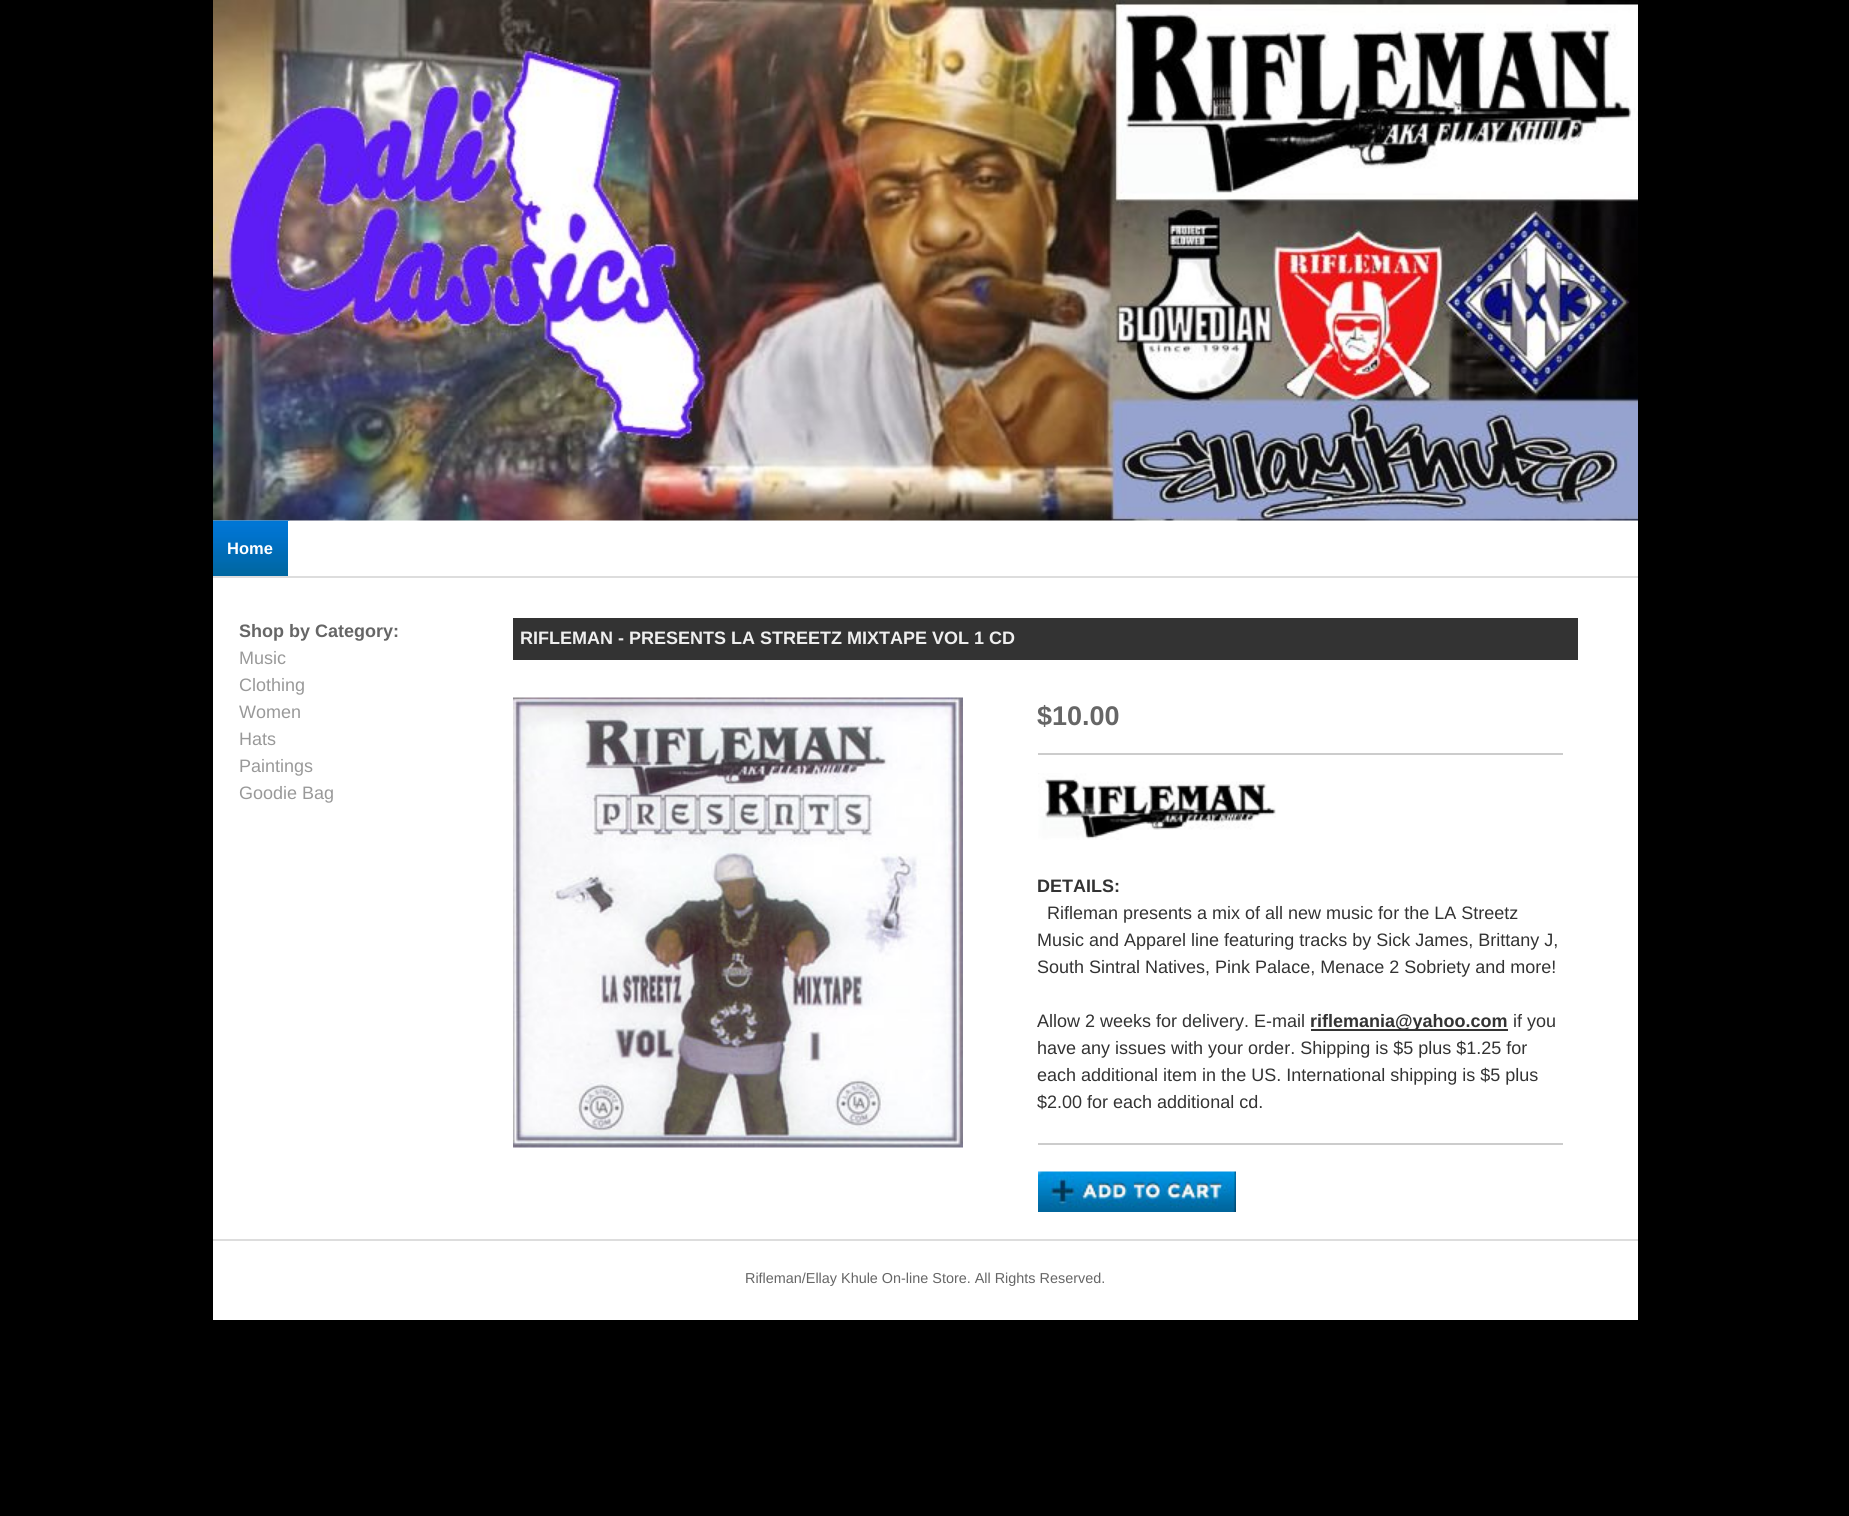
import math
import cairo

surface = cairo.ImageSurface(cairo.FORMAT_RGB24, 1849, 1516)
cr = cairo.Context(surface)
options = cairo.FontOptions()
options.set_hint_metrics(cairo.HINT_METRICS_OFF)
options.set_hint_style(cairo.HINT_STYLE_NONE)
cr.set_font_options(options)
cr.set_miter_limit(4)


def rgb(code):
    cr.set_source_rgb(*(v / 255 for v in bytes.fromhex(code[-6:])))


def image(path, x, y, w, h):
    cr.save()
    cr.set_source_surface(cairo.ImageSurface.create_from_png(path), x, y)
    cr.rectangle(x, y, w, h)
    cr.fill()
    cr.restore()


rgb("#000000")
cr.paint()
rgb("#ffffff")
cr.rectangle(213, 520, 1425, 800)
cr.fill()
image("img/1.png", 213, 0, 1425, 521)
image("img/2.png", 213, 520, 77, 56)
for x, y, w, h, color in [
    (288, 521, 2, 55, "#ffffff"),
    (213, 576, 1425, 2, "#dddddd"),
    (513, 618, 1065, 42, "#333333"),
]:
    rgb(color)
    cr.rectangle(x, y, w, h)
    cr.fill()
image("img/3.png", 513, 697, 450, 451)
rgb("#cccccc")
cr.rectangle(1038, 753, 525, 2)
cr.fill()
cr.rectangle(1038, 1143, 525, 2)
cr.fill()
image("img/4.png", 1038, 773, 238, 67)
rgb("#333333")
cr.rectangle(1311, 1029, 197, 2)
cr.fill()
image("img/5.png", 1038, 1171, 198, 41)
rgb("#dddddd")
cr.rectangle(213, 1239, 1425, 2)
cr.fill()
cr.select_font_face("Liberation Sans", cairo.FONT_SLANT_NORMAL, cairo.FONT_WEIGHT_BOLD)
cr.set_font_size(16.5)
rgb("#ffffff")
cr.move_to(227, 554)
cr.show_text("Home")
cr.set_font_size(18)
rgb("#666666")
cr.move_to(239, 637)
cr.show_text("Shop by Category:")
cr.select_font_face("Liberation Sans")
rgb("#999999")
for x, y, s in [
    (239, 664, "Music"),
    (239, 691, "Clothing"),
    (239, 718, "Women"),
    (239, 745, "Hats"),
    (239, 772, "Paintings"),
    (239, 799, "Goodie Bag"),
]:
    cr.move_to(x, y)
    cr.show_text(s)
cr.select_font_face("Liberation Sans", cairo.FONT_SLANT_NORMAL, cairo.FONT_WEIGHT_BOLD)
rgb("#efefef")
cr.move_to(520, 644)
cr.show_text("RIFLEMAN - PRESENTS LA STREETZ MIXTAPE VOL 1 CD")
cr.set_font_size(27)
rgb("#666666")
cr.move_to(1037, 725)
cr.show_text("$10.00")
cr.set_font_size(18)
rgb("#333333")
cr.move_to(1037, 892)
cr.show_text("DETAILS:")
cr.select_font_face("Liberation Sans")
for x, y, s in [
    (1047, 919, "Rifleman presents a mix of all new music for the LA Streetz"),
    (1037, 946, "Music and Apparel line featuring tracks by Sick James, Brittany J,"),
    (1037, 973, "South Sintral Natives, Pink Palace, Menace 2 Sobriety and more!"),
    (1037, 1027, "Allow 2 weeks for delivery. E-mail"),
]:
    cr.move_to(x, y)
    cr.show_text(s)
cr.select_font_face("Liberation Sans", cairo.FONT_SLANT_NORMAL, cairo.FONT_WEIGHT_BOLD)
cr.move_to(1310, 1027)
cr.show_text("riflemania@yahoo.com")
cr.select_font_face("Liberation Sans")
for x, y, s in [
    (1513, 1027, "if you"),
    (1037, 1054, "have any issues with your order. Shipping is $5 plus $1.25 for"),
    (1037, 1081, "each additional item in the US. International shipping is $5 plus"),
    (1037, 1108, "$2.00 for each additional cd."),
]:
    cr.move_to(x, y)
    cr.show_text(s)
cr.set_font_size(14.4)
rgb("#666666")
cr.move_to(745, 1283)
cr.show_text("Rifleman/Ellay Khule On-line Store. All Rights Reserved.")
surface.write_to_png("page.png")
